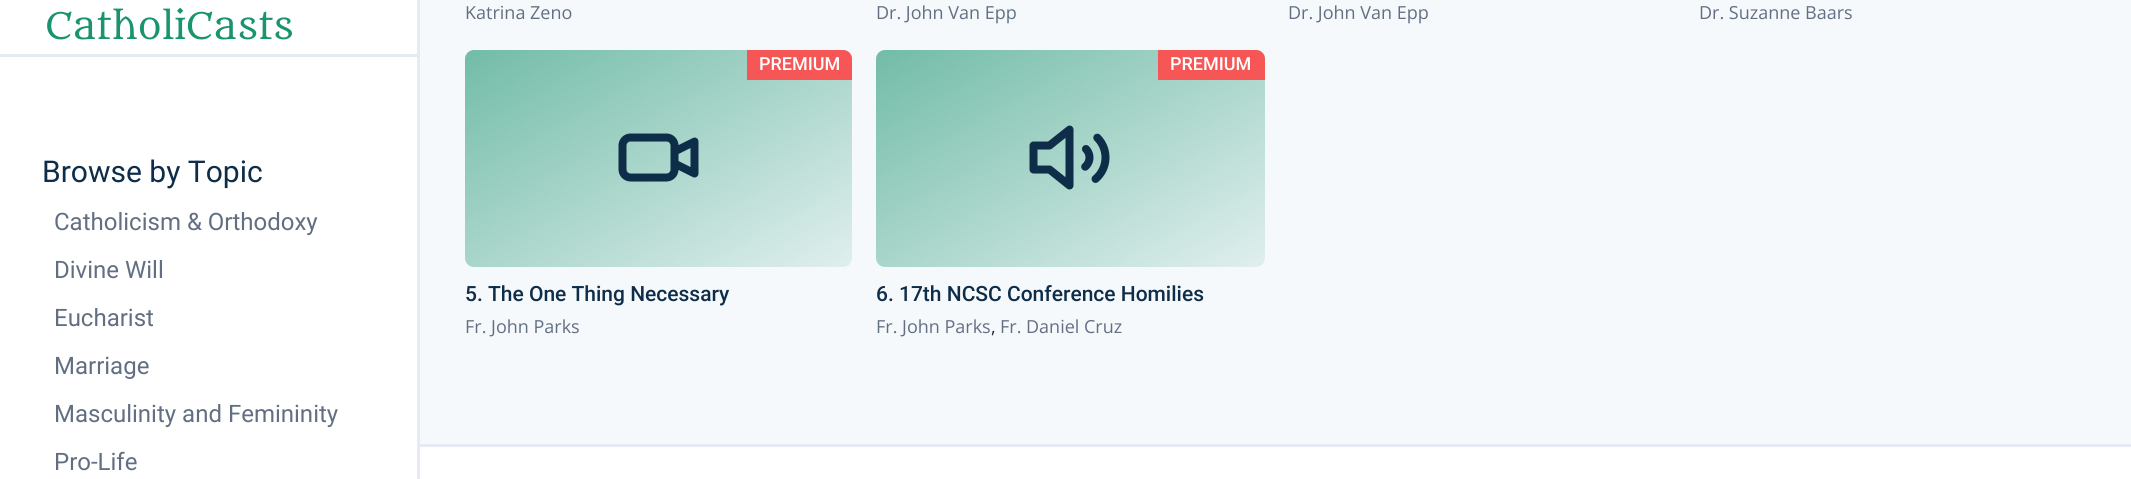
import math
import cairo

surface = cairo.ImageSurface(cairo.FORMAT_RGB24, 2131, 479)
cr = cairo.Context(surface)
options = cairo.FontOptions()
options.set_hint_metrics(cairo.HINT_METRICS_OFF)
options.set_hint_style(cairo.HINT_STYLE_NONE)
cr.set_font_options(options)
cr.set_miter_limit(4)


def rgb(code):
    cr.set_source_rgb(*(v / 255 for v in bytes.fromhex(code[-6:])))


def rrect(x, y, w, h, r):
    cr.new_sub_path()
    for i, (u, v) in enumerate([(x + w - r, y + h - r), (x + r, y + h - r), (x + r, y + r), (x + w - r, y + r)]):
        cr.arc(u, v, r, i * math.pi / 2, (i + 1) * math.pi / 2)
    cr.close_path()


def image(path, x, y, w, h):
    cr.save()
    cr.set_source_surface(cairo.ImageSurface.create_from_png(path), x, y)
    cr.rectangle(x, y, w, h)
    cr.fill()
    cr.restore()


rgb("#f6f9fb")
cr.paint()
for x, y, w, h, color in [
    (0, 0, 417, 479, "#ffffff"),
    (417, 0, 3, 479, "#e6eaf2"),
    (0, 54, 417, 3, "#e6eaf2"),
]:
    rgb(color)
    cr.rectangle(x, y, w, h)
    cr.fill()
gradient = cairo.LinearGradient(566, -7, 751, 324)
gradient.add_color_stop_rgba(0, 0.447, 0.737, 0.655, 1)
gradient.add_color_stop_rgba(1, 0.878, 0.937, 0.929, 1)
cr.set_source(gradient)
rrect(465, 50, 387, 217, 9)
cr.fill()
image("img/1.png", 618, 133, 81, 49)
rgb("#f65656")
cr.new_path()
cr.move_to(747, 50)
cr.line_to(843, 50)
cr.curve_to(848, 50, 852, 54, 852, 59)
cr.line_to(852, 80)
cr.line_to(747, 80)
cr.close_path()
cr.fill()
gradient = cairo.LinearGradient(978, -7.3, 1163, 324)
gradient.add_color_stop_rgba(0, 0.447, 0.737, 0.655, 1)
gradient.add_color_stop_rgba(1, 0.878, 0.937, 0.929, 1)
cr.set_source(gradient)
rrect(876, 50, 389, 217, 9)
cr.fill()
image("img/2.png", 1029, 125, 81, 65)
rgb("#f65656")
cr.new_path()
cr.move_to(1158, 50)
cr.line_to(1256, 50)
cr.curve_to(1261, 50, 1265, 54, 1265, 59)
cr.line_to(1265, 80)
cr.line_to(1158, 80)
cr.close_path()
cr.fill()
rgb("#ffffff")
cr.rectangle(420, 447, 1711, 32)
cr.fill()
rgb("#e6eaf2")
cr.rectangle(420, 444, 1711, 3)
cr.fill()
cr.select_font_face("Metamorphous")
cr.set_font_size(36)
rgb("#1a936f")
cr.move_to(45, 39)
cr.show_text("CatholiCasts")
cr.select_font_face("Roboto")
cr.set_font_size(30)
rgb("#0e2d49")
cr.move_to(42, 182)
cr.show_text("Browse by Topic")
cr.set_font_size(24)
rgb("#626f83")
for x, y, s in [
    (54, 230, "Catholicism & Orthodoxy"),
    (54, 278, "Divine Will"),
    (54, 326, "Eucharist"),
    (54, 374, "Marriage"),
    (54, 422, "Masculinity and Femininity"),
    (54, 470, "Pro-Life"),
]:
    cr.move_to(x, y)
    cr.show_text(s)
cr.select_font_face("Open Sans")
cr.set_font_size(18)
for x, y, s in [
    (465, 19, "Katrina Zeno"),
    (876, 19, "Dr. John Van Epp"),
    (1288, 19, "Dr. John Van Epp"),
    (1699, 19, "Dr. Suzanne Baars"),
]:
    cr.move_to(x, y)
    cr.show_text(s)
cr.select_font_face("Roboto Medium")
rgb("#ffffff")
cr.move_to(759, 70)
cr.show_text("PREMIUM")
cr.set_font_size(21)
rgb("#0e2d49")
cr.move_to(465, 301)
cr.show_text("5. The One Thing Necessary")
cr.select_font_face("Open Sans")
cr.set_font_size(18)
rgb("#626f83")
cr.move_to(465, 333)
cr.show_text("Fr. John Parks")
cr.select_font_face("Roboto Medium")
rgb("#ffffff")
cr.move_to(1170, 70)
cr.show_text("PREMIUM")
cr.set_font_size(21)
rgb("#0e2d49")
cr.move_to(876, 301)
cr.show_text("6. 17th NCSC Conference Homilies")
cr.select_font_face("Open Sans")
cr.set_font_size(18)
rgb("#626f83")
cr.move_to(876, 333)
cr.show_text("Fr. John Parks")
rgb("#212529")
cr.move_to(991, 333)
cr.show_text(",")
rgb("#626f83")
cr.move_to(1000, 333)
cr.show_text("Fr. Daniel Cruz")
surface.write_to_png("page.png")
